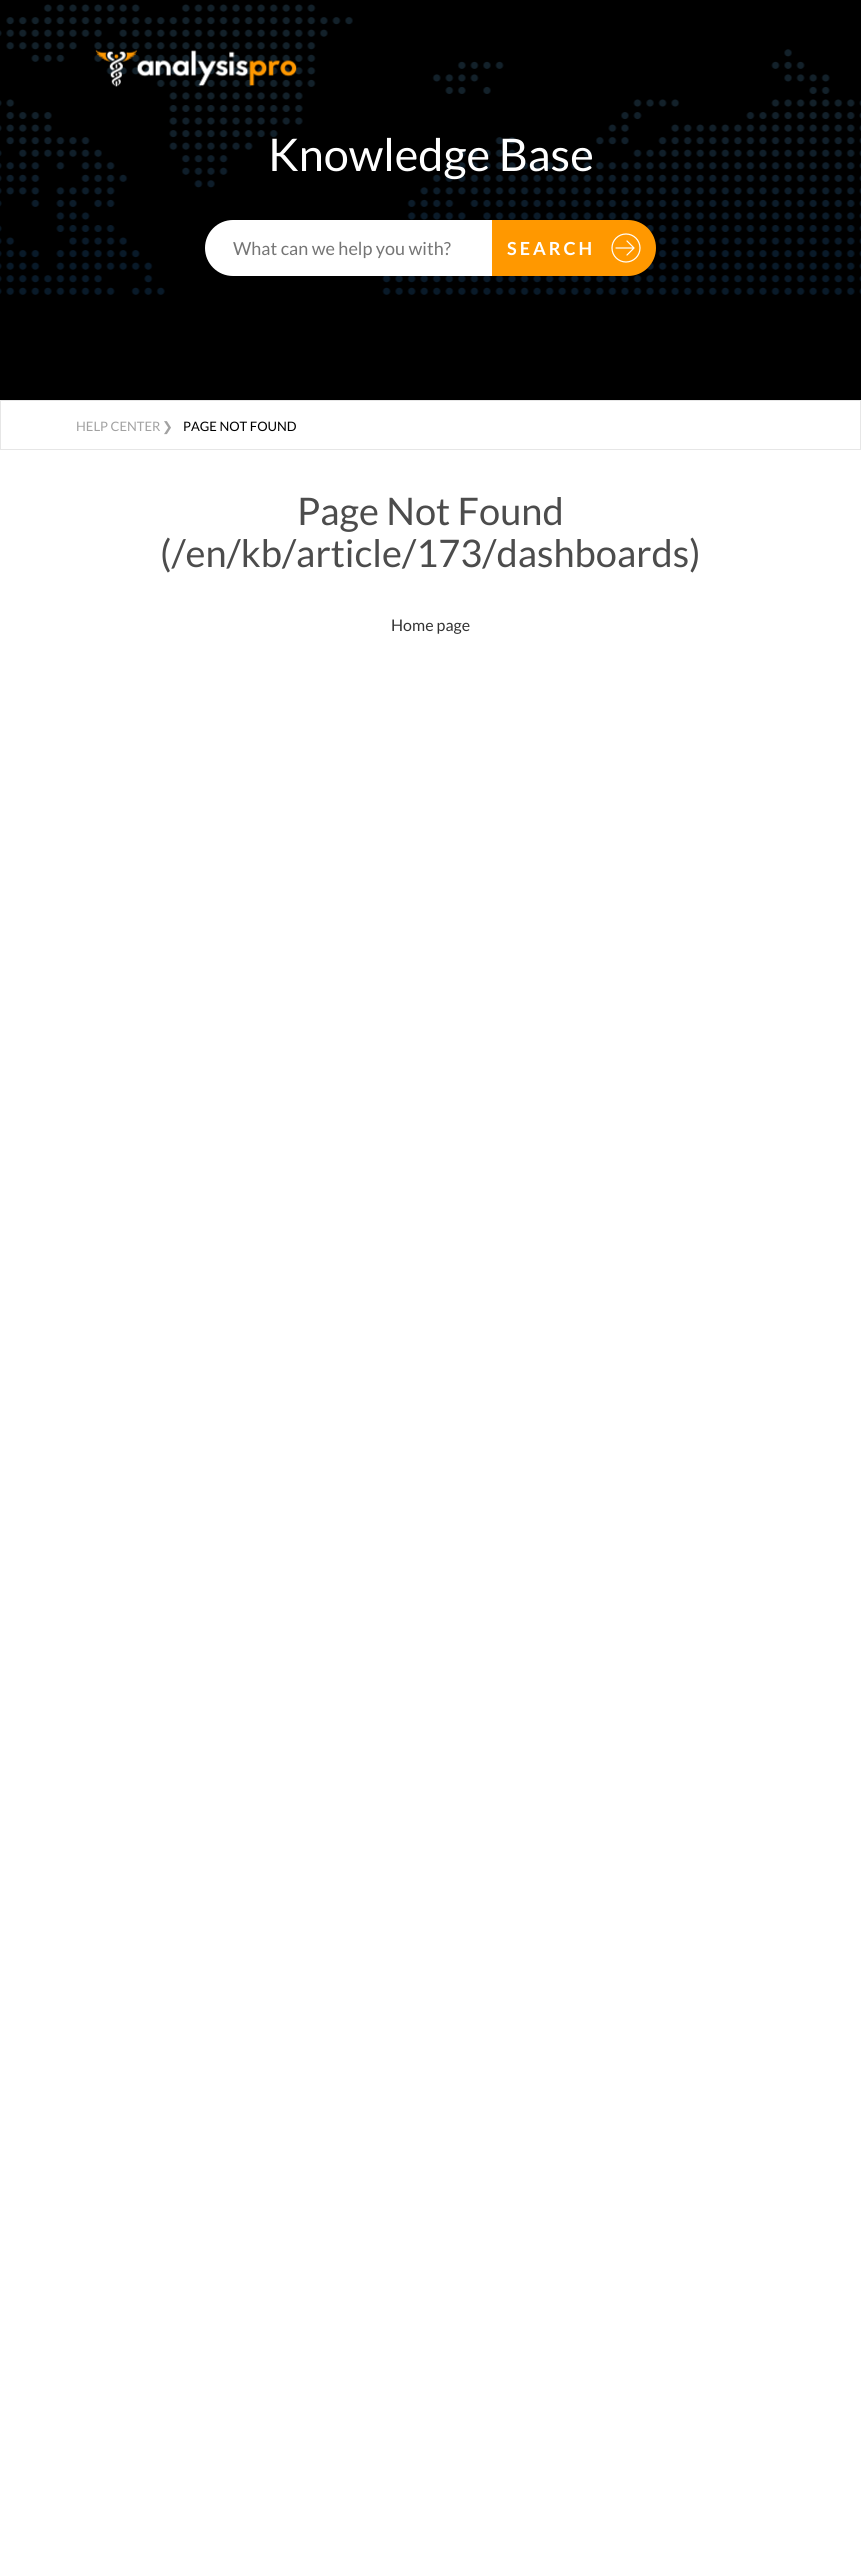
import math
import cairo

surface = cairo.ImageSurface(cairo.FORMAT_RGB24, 861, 2564)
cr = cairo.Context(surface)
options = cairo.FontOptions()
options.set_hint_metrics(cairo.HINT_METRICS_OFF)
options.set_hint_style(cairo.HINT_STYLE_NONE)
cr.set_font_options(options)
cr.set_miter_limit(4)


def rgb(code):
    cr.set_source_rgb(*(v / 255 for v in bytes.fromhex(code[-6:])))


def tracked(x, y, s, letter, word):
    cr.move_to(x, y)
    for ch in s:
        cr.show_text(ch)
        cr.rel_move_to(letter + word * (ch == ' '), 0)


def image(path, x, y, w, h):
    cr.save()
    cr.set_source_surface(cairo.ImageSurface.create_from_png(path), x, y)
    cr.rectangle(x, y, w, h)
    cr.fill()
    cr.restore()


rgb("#ffffff")
cr.paint()
rgb("#000000")
cr.rectangle(0, 0, 861, 400)
cr.fill()
image("img/1.png", 0, 4, 861, 291)
image("img/2.png", 95, 49, 202, 38)
rgb("#ffffff")
cr.new_path()
cr.move_to(233, 220)
cr.line_to(492, 220)
cr.line_to(492, 276)
cr.line_to(233, 276)
cr.curve_to(217.5, 276, 205, 263.5, 205, 248)
cr.curve_to(205, 232.5, 217.5, 220, 233, 220)
cr.close_path()
cr.fill()
rgb("#ff9800")
cr.new_path()
cr.move_to(492, 220)
cr.line_to(628, 220)
cr.curve_to(643.5, 220, 656, 232.5, 656, 248)
cr.curve_to(656, 263.5, 643.5, 276, 628, 276)
cr.line_to(492, 276)
cr.close_path()
cr.fill()
cr.arc(626, 248, 14, 0, 2 * math.pi)
rgb("#ffffff")
cr.set_line_width(1.2)
cr.stroke()
cr.new_path()
cr.move_to(616, 248)
cr.line_to(634, 248)
cr.move_to(627, 241)
cr.line_to(634, 248)
cr.line_to(627, 255)
cr.set_line_cap(cairo.LINE_CAP_ROUND)
cr.set_line_join(cairo.LINE_JOIN_ROUND)
cr.stroke()
cr.rectangle(0.5, 400.5, 860, 49)
rgb("#e6e6e6")
cr.set_line_width(1)
cr.set_line_cap(cairo.LINE_CAP_BUTT)
cr.set_line_join(cairo.LINE_JOIN_MITER)
cr.stroke()
cr.select_font_face("Lato")
cr.set_font_size(45)
rgb("#ffffff")
cr.move_to(268, 171)
cr.show_text("Knowledge Base")
cr.set_font_size(18)
rgb("#757575")
cr.move_to(233, 255)
cr.show_text("What can we help you with?")
cr.select_font_face("Lato", cairo.FONT_SLANT_NORMAL, cairo.FONT_WEIGHT_BOLD)
rgb("#ffffff")
tracked(507, 255, "SEARCH", 3, 0)
cr.select_font_face("Lato")
cr.set_font_size(13)
rgb("#a2a2a2")
cr.move_to(76, 431)
cr.show_text("HELP CENTER")
cr.select_font_face("DejaVu Sans")
cr.move_to(162, 431)
cr.show_text("❯")
cr.select_font_face("Lato")
rgb("#000000")
cr.move_to(183, 431)
cr.show_text("PAGE NOT FOUND")
cr.set_font_size(38)
rgb("#4c4c4c")
cr.move_to(297, 525)
cr.show_text("Page Not Found")
cr.move_to(160, 567)
cr.show_text("(/en/kb/article/173/dashboards)")
cr.set_font_size(16)
rgb("#333333")
cr.move_to(391, 631)
cr.show_text("Home page")
surface.write_to_png("page.png")
